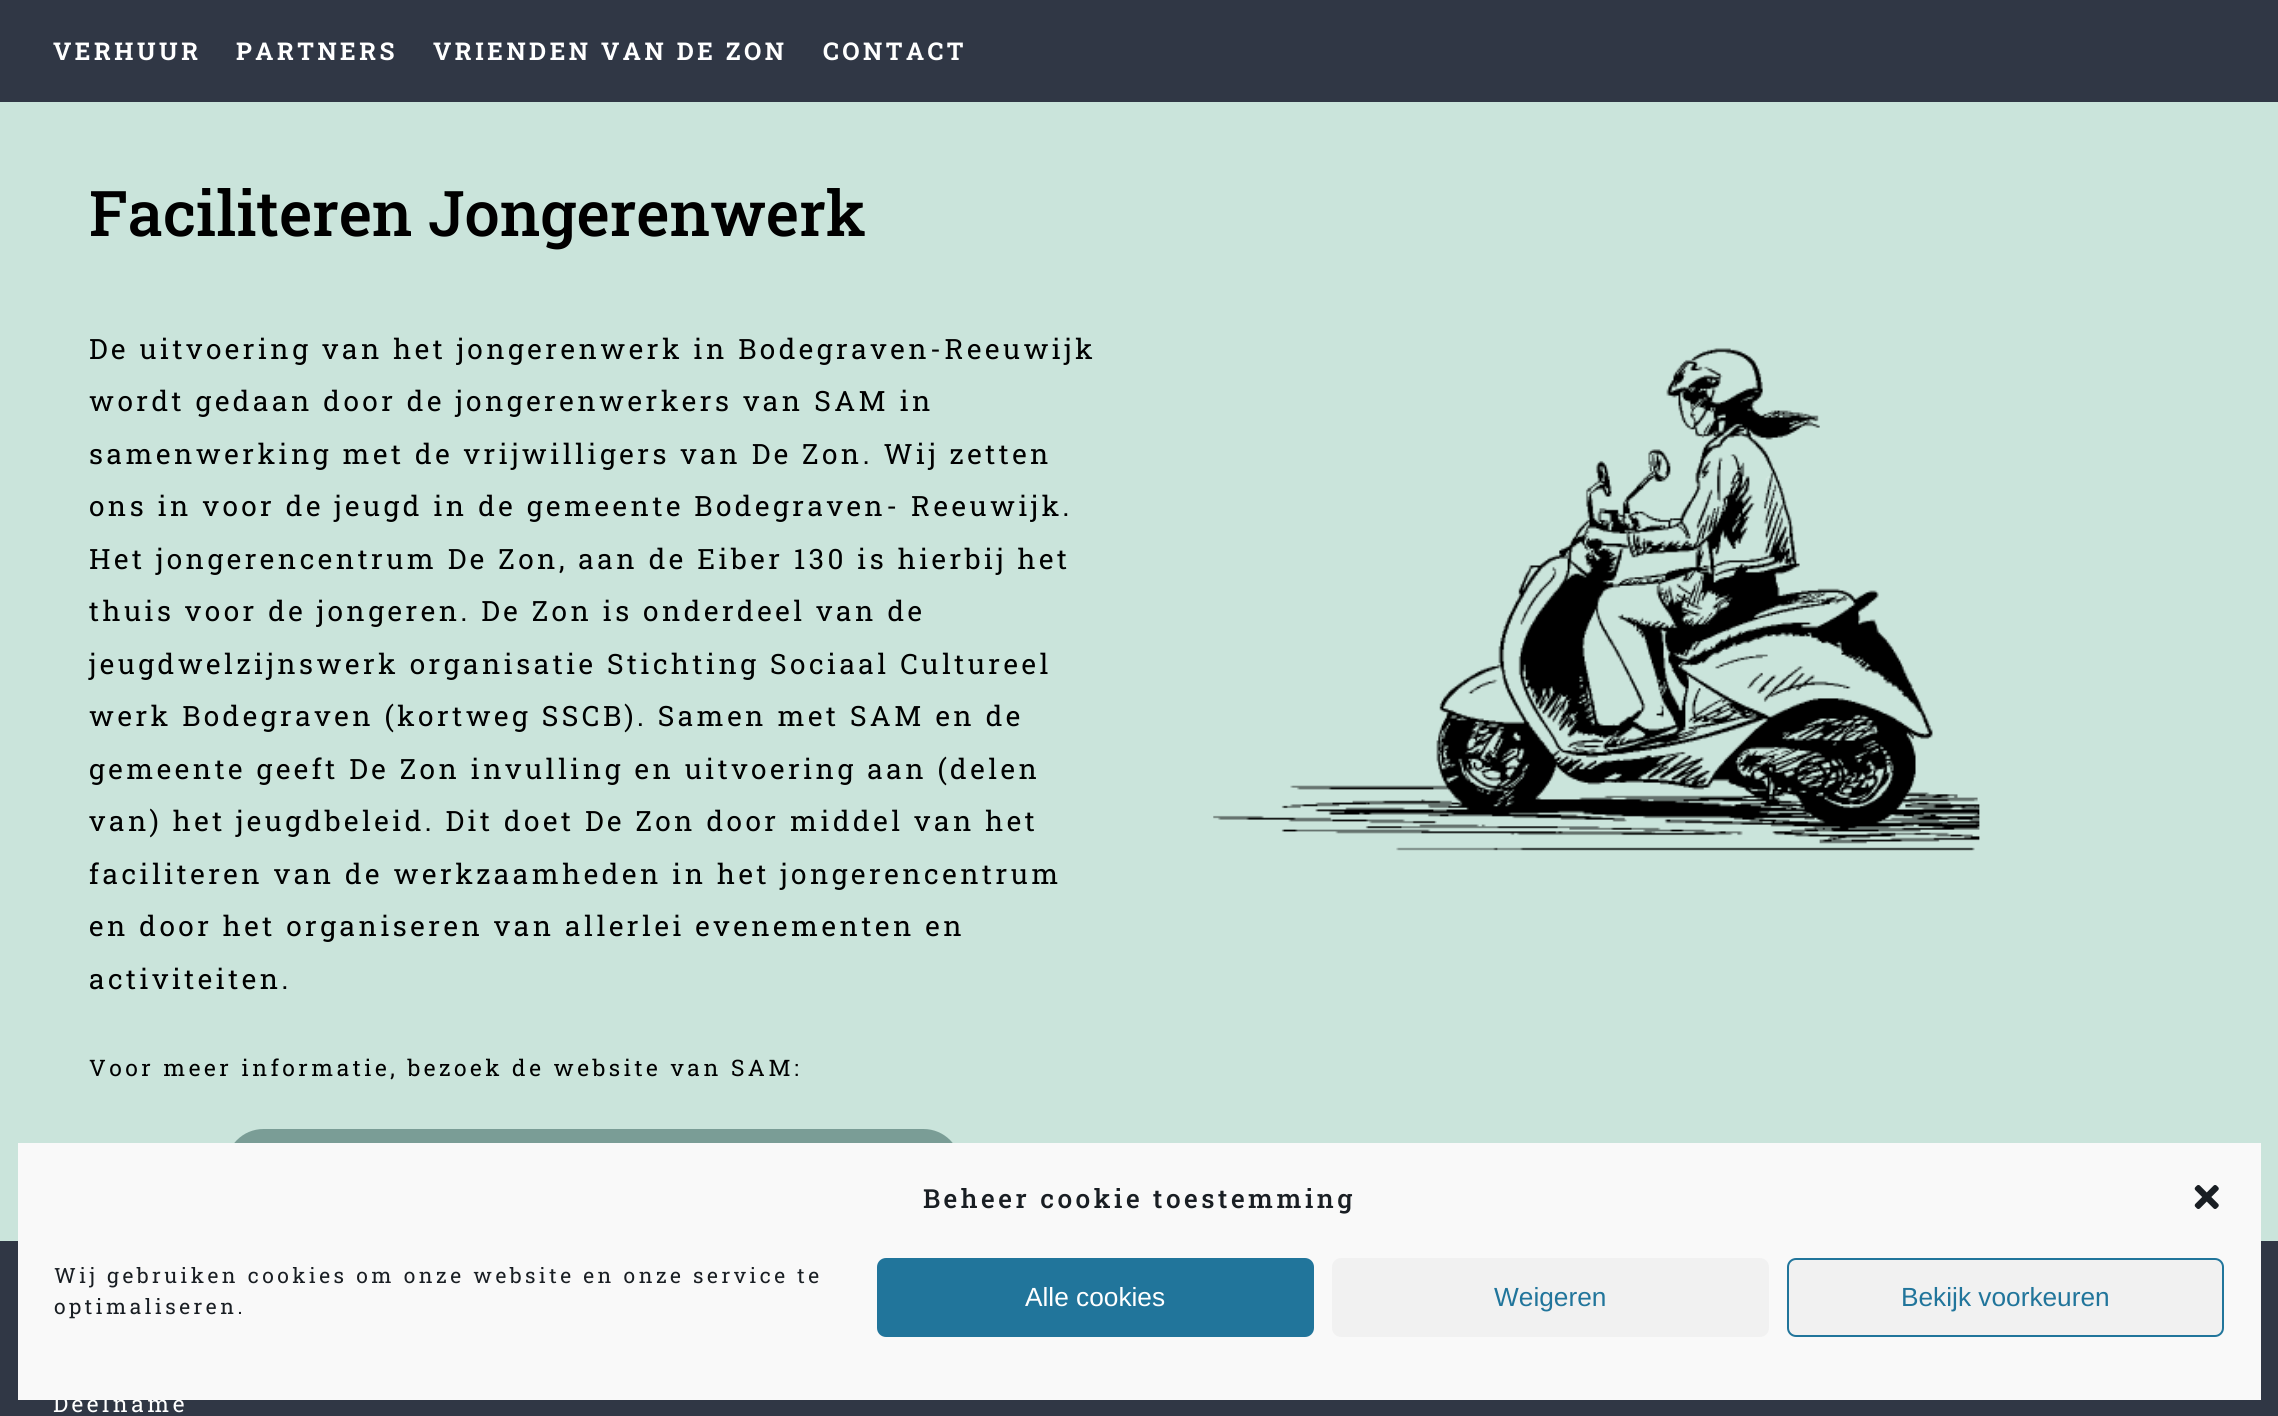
import math
import cairo

surface = cairo.ImageSurface(cairo.FORMAT_RGB24, 2278, 1416)
cr = cairo.Context(surface)
options = cairo.FontOptions()
options.set_hint_metrics(cairo.HINT_METRICS_OFF)
options.set_hint_style(cairo.HINT_STYLE_NONE)
cr.set_font_options(options)
cr.set_miter_limit(4)


def rgb(code):
    cr.set_source_rgb(*(v / 255 for v in bytes.fromhex(code[-6:])))


def tracked(x, y, s, letter, word):
    cr.move_to(x, y)
    for ch in s:
        cr.show_text(ch)
        cr.rel_move_to(letter + word * (ch == ' '), 0)


def rrect(x, y, w, h, r):
    cr.new_sub_path()
    for i, (u, v) in enumerate([(x + w - r, y + h - r), (x + r, y + h - r), (x + r, y + r), (x + w - r, y + r)]):
        cr.arc(u, v, r, i * math.pi / 2, (i + 1) * math.pi / 2)
    cr.close_path()


def image(path, x, y, w, h):
    cr.save()
    cr.set_source_surface(cairo.ImageSurface.create_from_png(path), x, y)
    cr.rectangle(x, y, w, h)
    cr.fill()
    cr.restore()


rgb("#303745")
cr.paint()
rgb("#cae4db")
cr.rectangle(0, 102, 2278, 1139)
cr.fill()
image("img/1.png", 1213, 348, 767, 503)
rgb("#7a9d96")
rrect(226, 1129, 735, 75, 37.5)
cr.fill()
cr.select_font_face("Roboto Slab", cairo.FONT_SLANT_NORMAL, cairo.FONT_WEIGHT_BOLD)
cr.set_font_size(24.5)
rgb("#ffffff")
for x, y, s in [
    (53, 60, "VERHUUR"),
    (236, 60, "PARTNERS"),
    (433, 60, "VRIENDEN VAN DE ZON"),
    (823, 60, "CONTACT"),
]:
    tracked(x, y, s, 3.5, 0)
cr.select_font_face("Roboto Slab Medium")
cr.set_font_size(63)
rgb("#000000")
cr.move_to(89, 236)
cr.show_text("Faciliteren Jongerenwerk")
cr.select_font_face("Roboto Slab")
cr.set_font_size(28)
for x, y, s in [
    (89, 359, "De uitvoering van het jongerenwerk in Bodegraven-Reeuwijk"),
    (89, 411, "wordt gedaan door de jongerenwerkers van SAM in"),
    (89, 464, "samenwerking met de vrijwilligers van De Zon. Wij zetten"),
    (89, 516, "ons in voor de jeugd in de gemeente Bodegraven- Reeuwijk."),
    (89, 569, "Het jongerencentrum De Zon, aan de Eiber 130 is hierbij het"),
    (89, 621, "thuis voor de jongeren. De Zon is onderdeel van de"),
    (89, 674, "jeugdwelzijnswerk organisatie Stichting Sociaal Cultureel"),
    (89, 726, "werk Bodegraven (kortweg SSCB). Samen met SAM en de"),
    (89, 779, "gemeente geeft De Zon invulling en uitvoering aan (delen"),
    (89, 831, "van) het jeugdbeleid. Dit doet De Zon door middel van het"),
    (89, 884, "faciliteren van de werkzaamheden in het jongerencentrum"),
    (89, 936, "en door het organiseren van allerlei evenementen en"),
    (89, 989, "activiteiten."),
]:
    tracked(x, y, s, 3.5, 0)
cr.set_font_size(22.75)
tracked(89, 1076, "Voor meer informatie, bezoek de website van SAM:", 3.5, 0)
rgb("#ffffff")
tracked(53, 1412, "Deelname", 3.5, 0)
rgb("#f9f9f9")
cr.rectangle(18, 1143, 2243, 257)
cr.fill()
cr.select_font_face("Roboto Slab Medium")
cr.set_font_size(26.25)
rgb("#191e23")
tracked(923, 1208, "Beheer cookie toestemming", 3.5, 0)
image("img/2.png", 2194, 1185, 25, 24)
cr.select_font_face("Roboto Slab")
cr.set_font_size(21)
tracked(54, 1283, "Wij gebruiken cookies om onze website en onze service te", 3.5, 0)
tracked(54, 1314, "optimaliseren.", 3.5, 0)
rgb("#21759b")
rrect(878, 1259, 435, 77, 8)
cr.fill_preserve()
cr.stroke()
cr.select_font_face("Liberation Sans")
cr.set_font_size(26.25)
rgb("#ffffff")
cr.move_to(1025, 1306)
cr.show_text("Alle cookies")
rgb("#f1f1f1")
rrect(1332, 1258, 437, 79, 9)
cr.fill()
rgb("#21759b")
cr.move_to(1494, 1306)
cr.show_text("Weigeren")
rgb("#f1f1f1")
rrect(1788, 1259, 435, 77, 8)
cr.fill_preserve()
rgb("#21759b")
cr.stroke()
cr.move_to(1901, 1306)
cr.show_text("Bekijk voorkeuren")
surface.write_to_png("page.png")
